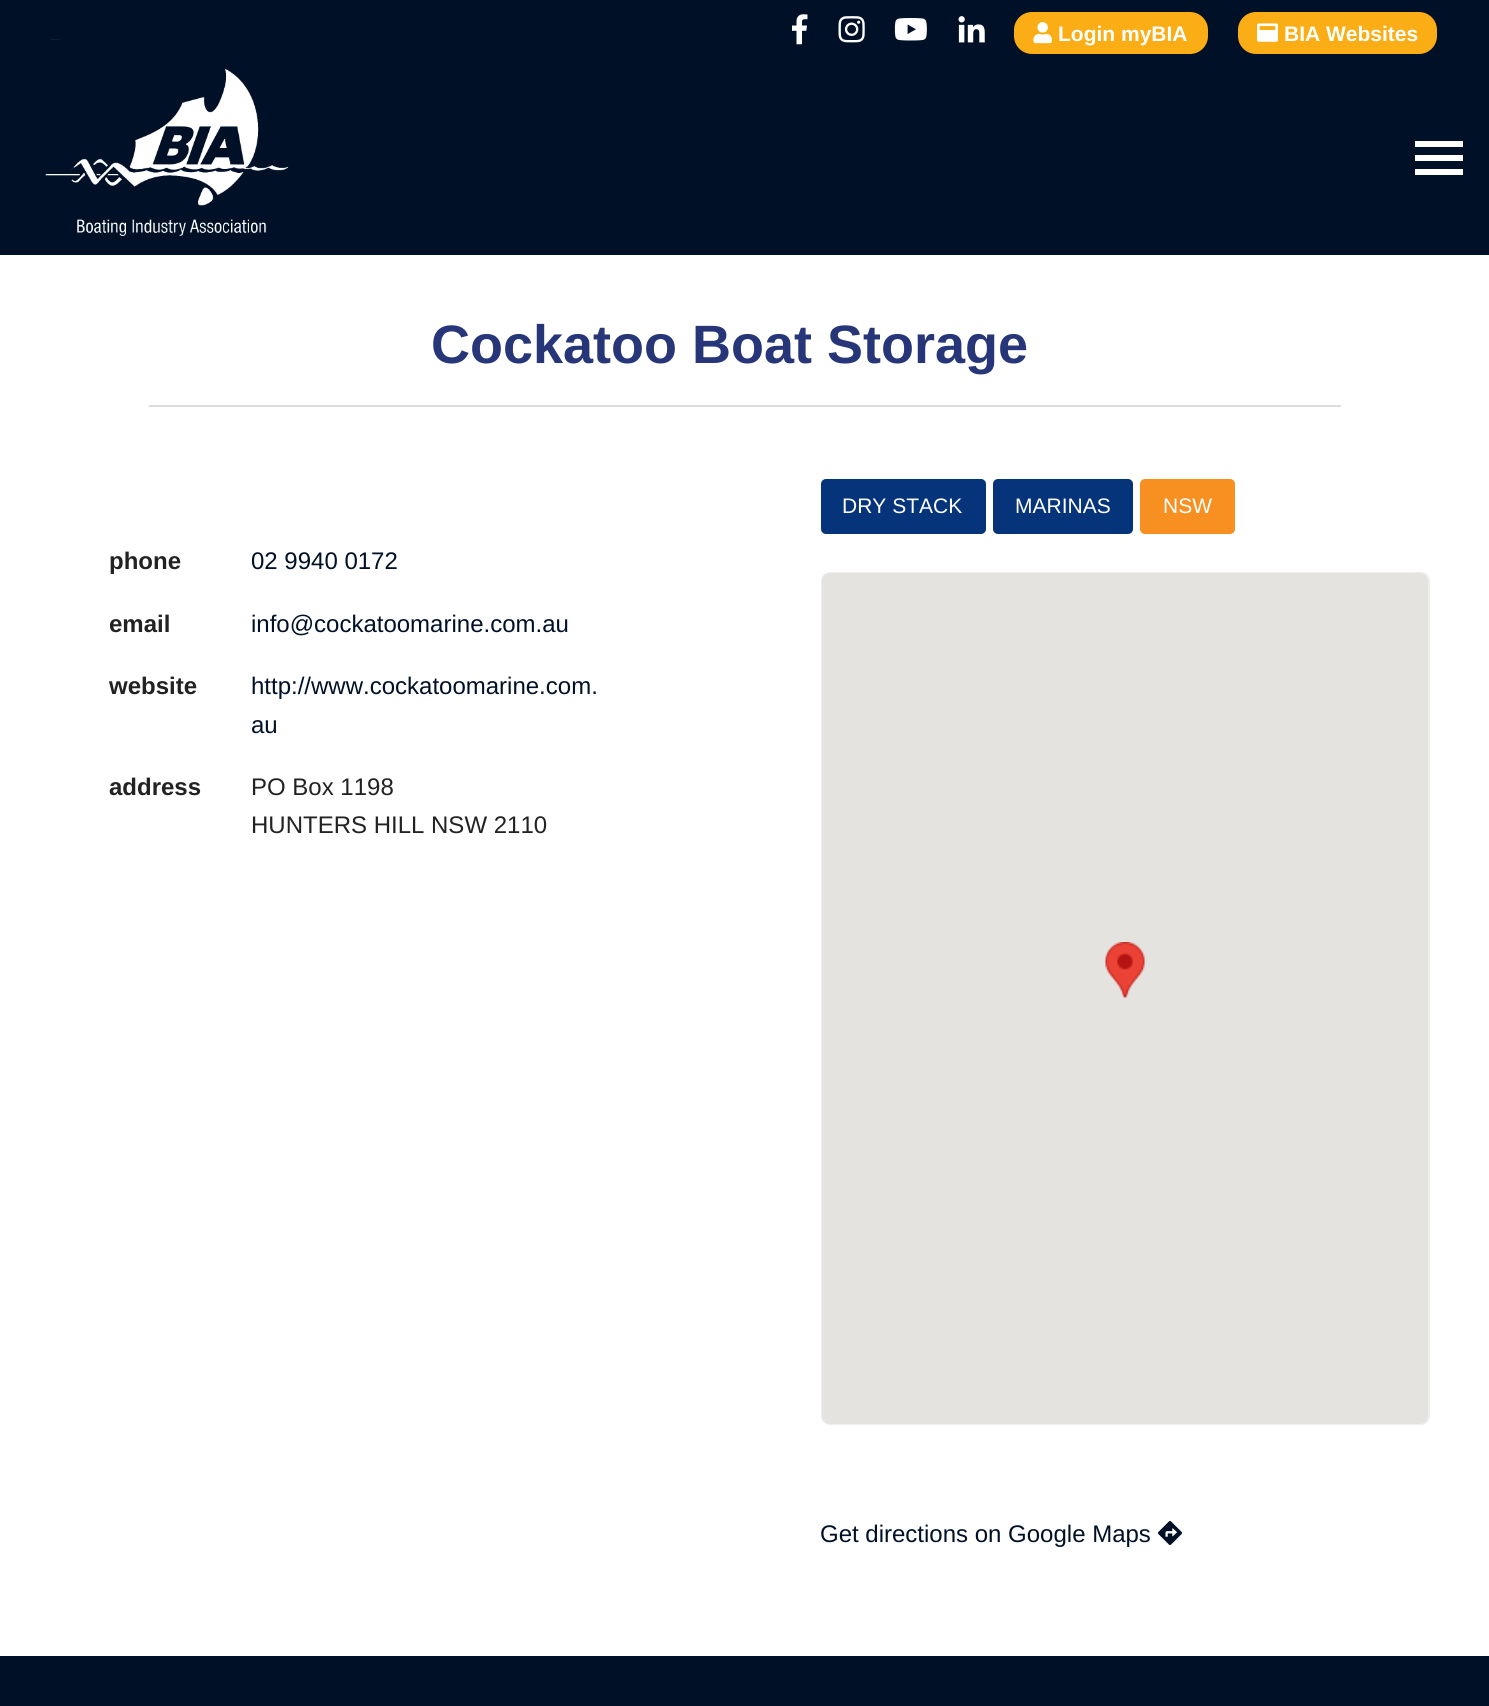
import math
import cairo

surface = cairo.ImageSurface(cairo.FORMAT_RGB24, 1489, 1706)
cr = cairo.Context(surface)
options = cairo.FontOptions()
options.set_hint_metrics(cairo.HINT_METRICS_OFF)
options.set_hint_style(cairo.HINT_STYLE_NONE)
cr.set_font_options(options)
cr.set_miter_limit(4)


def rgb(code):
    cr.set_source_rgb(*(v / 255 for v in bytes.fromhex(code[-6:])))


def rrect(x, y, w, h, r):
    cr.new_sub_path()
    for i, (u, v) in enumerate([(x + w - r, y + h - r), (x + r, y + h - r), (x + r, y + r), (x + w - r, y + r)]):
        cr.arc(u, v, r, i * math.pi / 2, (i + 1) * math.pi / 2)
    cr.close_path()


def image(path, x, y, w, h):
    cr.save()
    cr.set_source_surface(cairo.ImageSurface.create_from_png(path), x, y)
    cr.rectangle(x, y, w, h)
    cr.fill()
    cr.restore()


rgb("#ffffff")
cr.paint()
rgb("#001027")
cr.rectangle(0, 0, 1489, 255)
cr.fill()
image("img/1.png", 792, 14, 16, 31)
image("img/2.png", 838, 16, 27, 27)
image("img/3.png", 894, 18, 33, 23)
image("img/4.png", 958, 16, 27, 27)
rgb("#faad15")
rrect(1014, 12, 194, 42, 18)
cr.fill()
image("img/5.png", 1033, 22, 19, 22)
rrect(1238, 12, 199, 42, 18)
cr.fill()
image("img/6.png", 1257, 23, 21, 19)
image("img/7.png", 45, 39, 244, 197)
for x, y, w, h, color in [
    (1415, 141, 48, 6, "#ffffff"),
    (1415, 155, 48, 6, "#ffffff"),
    (1415, 169, 48, 6, "#ffffff"),
    (149, 405, 1192, 2, "#dddddd"),
]:
    rgb(color)
    cr.rectangle(x, y, w, h)
    cr.fill()
rgb("#05347a")
rrect(821, 479, 165, 55, 5)
cr.fill()
rrect(993, 479, 140, 55, 5)
cr.fill()
rgb("#f79021")
rrect(1140, 479, 95, 55, 5)
cr.fill()
rrect(822, 573, 607, 851, 8)
rgb("#eeeeee")
cr.stroke()
rgb("#e5e3df")
rrect(822, 573, 606, 851, 8)
cr.fill()
image("img/8.png", 1105, 942, 40, 56)
image("img/9.png", 1158, 1521, 24, 24)
rgb("#001027")
cr.rectangle(0, 1656, 1489, 50)
cr.fill()
cr.select_font_face("Liberation Sans", cairo.FONT_SLANT_NORMAL, cairo.FONT_WEIGHT_BOLD)
cr.set_font_size(21)
rgb("#ffffff")
cr.move_to(1058, 41)
cr.show_text("Login myBIA")
cr.move_to(1284, 41)
cr.show_text("BIA Websites")
cr.set_font_size(54)
rgb("#273679")
cr.move_to(431, 363)
cr.show_text("Cockatoo Boat Storage")
cr.set_font_size(24)
rgb("#222222")
cr.move_to(109, 569)
cr.show_text("phone")
cr.select_font_face("Liberation Sans")
rgb("#001027")
cr.move_to(251, 569)
cr.show_text("02 9940 0172")
cr.select_font_face("Liberation Sans", cairo.FONT_SLANT_NORMAL, cairo.FONT_WEIGHT_BOLD)
rgb("#222222")
cr.move_to(109, 632)
cr.show_text("email")
cr.select_font_face("Liberation Sans")
rgb("#001027")
cr.move_to(251, 632)
cr.show_text("info@cockatoomarine.com.au")
cr.select_font_face("Liberation Sans", cairo.FONT_SLANT_NORMAL, cairo.FONT_WEIGHT_BOLD)
rgb("#222222")
cr.move_to(109, 694)
cr.show_text("website")
cr.select_font_face("Liberation Sans")
rgb("#001027")
cr.move_to(251, 694)
cr.show_text("http://www.cockatoomarine.com.")
cr.move_to(251, 733)
cr.show_text("au")
cr.select_font_face("Liberation Sans", cairo.FONT_SLANT_NORMAL, cairo.FONT_WEIGHT_BOLD)
rgb("#222222")
cr.move_to(109, 795)
cr.show_text("address")
cr.select_font_face("Liberation Sans")
cr.move_to(251, 795)
cr.show_text("PO Box 1198")
cr.move_to(251, 833)
cr.show_text("HUNTERS HILL NSW 2110")
cr.set_font_size(21)
rgb("#ffffff")
for x, y, s in [
    (842, 513, "DRY STACK"),
    (1015, 513, "MARINAS"),
    (1163, 513, "NSW"),
]:
    cr.move_to(x, y)
    cr.show_text(s)
cr.set_font_size(24)
rgb("#001027")
cr.move_to(820, 1542)
cr.show_text("Get directions on Google Maps")
surface.write_to_png("page.png")
